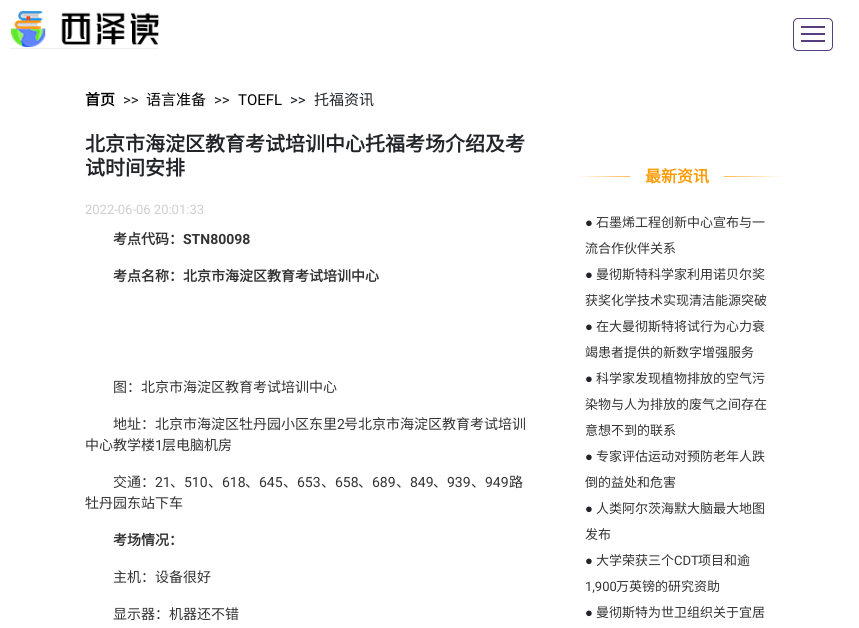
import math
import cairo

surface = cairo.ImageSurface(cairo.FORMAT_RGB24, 859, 628)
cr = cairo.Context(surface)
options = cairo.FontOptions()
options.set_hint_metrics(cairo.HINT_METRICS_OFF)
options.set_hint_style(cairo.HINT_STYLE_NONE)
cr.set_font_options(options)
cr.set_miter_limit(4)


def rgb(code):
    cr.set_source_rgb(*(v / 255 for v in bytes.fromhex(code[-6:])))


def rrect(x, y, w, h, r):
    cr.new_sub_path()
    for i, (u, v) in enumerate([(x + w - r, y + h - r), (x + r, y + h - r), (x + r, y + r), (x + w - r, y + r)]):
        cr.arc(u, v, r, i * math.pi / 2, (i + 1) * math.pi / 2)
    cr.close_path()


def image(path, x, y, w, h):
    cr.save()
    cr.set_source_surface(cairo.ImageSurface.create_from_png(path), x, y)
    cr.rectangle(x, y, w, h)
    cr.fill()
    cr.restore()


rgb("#ffffff")
cr.paint()
rgb("#efefef")
cr.rectangle(10, 48, 149, 1)
cr.fill()
image("img/1.png", 11, 11, 148, 37)
rrect(793.5, 18.5, 39, 32, 4.5)
rgb("#563d7c")
cr.set_line_width(1)
cr.stroke()
for x, y, w, h, color in [
    (801, 26, 24, 2, "#563d7c"),
    (801, 33, 24, 2, "#563d7c"),
    (801, 40, 24, 2, "#563d7c"),
]:
    rgb(color)
    cr.rectangle(x, y, w, h)
    cr.fill()
image("img/2.png", 577, 176, 205, 1)
rgb("#ffffff")
cr.rectangle(630, 176, 94, 1)
cr.fill()
cr.select_font_face("Noto Sans CJK SC", cairo.FONT_SLANT_NORMAL, cairo.FONT_WEIGHT_BOLD)
cr.set_font_size(15)
rgb("#000000")
cr.move_to(85, 105)
cr.show_text("首页")
cr.select_font_face("Roboto")
rgb("#212529")
cr.move_to(123, 105)
cr.show_text(">>")
cr.select_font_face("Noto Sans CJK SC")
rgb("#000000")
cr.move_to(146, 105)
cr.show_text("语言准备")
cr.select_font_face("Roboto")
rgb("#212529")
cr.move_to(214, 105)
cr.show_text(">>")
rgb("#000000")
cr.move_to(238, 105)
cr.show_text("TOEFL")
rgb("#212529")
cr.move_to(290, 105)
cr.show_text(">>")
cr.select_font_face("Noto Sans CJK SC")
cr.move_to(314, 105)
cr.show_text("托福资讯")
cr.select_font_face("Noto Sans CJK SC", cairo.FONT_SLANT_NORMAL, cairo.FONT_WEIGHT_BOLD)
cr.set_font_size(20)
cr.move_to(85, 151)
cr.show_text("北京市海淀区教育考试培训中心托福考场介绍及考")
cr.move_to(85, 175)
cr.show_text("试时间安排")
cr.select_font_face("Roboto")
cr.set_font_size(13)
rgb("#cecece")
cr.move_to(85, 214)
cr.show_text("2022-06-06 20:01:33")
cr.select_font_face("Noto Sans CJK SC", cairo.FONT_SLANT_NORMAL, cairo.FONT_WEIGHT_BOLD)
cr.set_font_size(14)
rgb("#333333")
cr.move_to(113, 244)
cr.show_text("考点代码：")
cr.select_font_face("Roboto", cairo.FONT_SLANT_NORMAL, cairo.FONT_WEIGHT_BOLD)
cr.move_to(183, 244)
cr.show_text("STN80098")
cr.select_font_face("Noto Sans CJK SC", cairo.FONT_SLANT_NORMAL, cairo.FONT_WEIGHT_BOLD)
cr.move_to(113, 281)
cr.show_text("考点名称：北京市海淀区教育考试培训中心")
cr.select_font_face("Noto Sans CJK SC")
cr.move_to(113, 392)
cr.show_text("图：北京市海淀区教育考试培训中心")
cr.move_to(113, 429)
cr.show_text("地址：北京市海淀区牡丹园小区东里")
cr.select_font_face("Roboto")
cr.move_to(337, 429)
cr.show_text("2")
cr.select_font_face("Noto Sans CJK SC")
cr.move_to(344, 429)
cr.show_text("号北京市海淀区教育考试培训")
cr.move_to(85, 450)
cr.show_text("中心教学楼")
cr.select_font_face("Roboto")
cr.move_to(155, 450)
cr.show_text("1")
cr.select_font_face("Noto Sans CJK SC")
cr.move_to(162, 450)
cr.show_text("层电脑机房")
cr.move_to(113, 487)
cr.show_text("交通：")
cr.select_font_face("Roboto")
cr.move_to(155, 487)
cr.show_text("21")
cr.select_font_face("Noto Sans CJK SC")
cr.move_to(170, 487)
cr.show_text("、")
cr.select_font_face("Roboto")
cr.move_to(184, 487)
cr.show_text("510")
cr.select_font_face("Noto Sans CJK SC")
cr.move_to(208, 487)
cr.show_text("、")
cr.select_font_face("Roboto")
cr.move_to(222, 487)
cr.show_text("618")
cr.select_font_face("Noto Sans CJK SC")
cr.move_to(245, 487)
cr.show_text("、")
cr.select_font_face("Roboto")
cr.move_to(259, 487)
cr.show_text("645")
cr.select_font_face("Noto Sans CJK SC")
cr.move_to(283, 487)
cr.show_text("、")
cr.select_font_face("Roboto")
cr.move_to(297, 487)
cr.show_text("653")
cr.select_font_face("Noto Sans CJK SC")
cr.move_to(321, 487)
cr.show_text("、")
cr.select_font_face("Roboto")
cr.move_to(335, 487)
cr.show_text("658")
cr.select_font_face("Noto Sans CJK SC")
cr.move_to(358, 487)
cr.show_text("、")
cr.select_font_face("Roboto")
cr.move_to(372, 487)
cr.show_text("689")
cr.select_font_face("Noto Sans CJK SC")
cr.move_to(396, 487)
cr.show_text("、")
cr.select_font_face("Roboto")
cr.move_to(410, 487)
cr.show_text("849")
cr.select_font_face("Noto Sans CJK SC")
cr.move_to(433, 487)
cr.show_text("、")
cr.select_font_face("Roboto")
cr.move_to(447, 487)
cr.show_text("939")
cr.select_font_face("Noto Sans CJK SC")
cr.move_to(471, 487)
cr.show_text("、")
cr.select_font_face("Roboto")
cr.move_to(485, 487)
cr.show_text("949")
cr.select_font_face("Noto Sans CJK SC")
cr.move_to(509, 487)
cr.show_text("路")
cr.move_to(85, 508)
cr.show_text("牡丹园东站下车")
cr.select_font_face("Noto Sans CJK SC", cairo.FONT_SLANT_NORMAL, cairo.FONT_WEIGHT_BOLD)
cr.move_to(113, 545)
cr.show_text("考场情况：")
cr.select_font_face("Noto Sans CJK SC")
cr.move_to(113, 582)
cr.show_text("主机：设备很好")
cr.move_to(113, 619)
cr.show_text("显示器：机器还不错")
cr.select_font_face("Noto Sans CJK SC", cairo.FONT_SLANT_NORMAL, cairo.FONT_WEIGHT_BOLD)
cr.set_font_size(16)
rgb("#ff9900")
cr.move_to(645, 182)
cr.show_text("最新资讯")
cr.select_font_face("Liberation Sans")
cr.set_font_size(13)
rgb("#212529")
cr.move_to(585, 227)
cr.show_text("●")
cr.select_font_face("Noto Sans CJK SC")
rgb("#333333")
cr.move_to(596, 227)
cr.show_text("石墨烯工程创新中心宣布与一")
cr.move_to(585, 253)
cr.show_text("流合作伙伴关系")
cr.select_font_face("Liberation Sans")
rgb("#212529")
cr.move_to(585, 279)
cr.show_text("●")
cr.select_font_face("Noto Sans CJK SC")
rgb("#333333")
cr.move_to(596, 279)
cr.show_text("曼彻斯特科学家利用诺贝尔奖")
cr.move_to(585, 305)
cr.show_text("获奖化学技术实现清洁能源突破")
cr.select_font_face("Liberation Sans")
rgb("#212529")
cr.move_to(585, 331)
cr.show_text("●")
cr.select_font_face("Noto Sans CJK SC")
rgb("#333333")
cr.move_to(596, 331)
cr.show_text("在大曼彻斯特将试行为心力衰")
cr.move_to(585, 357)
cr.show_text("竭患者提供的新数字增强服务")
cr.select_font_face("Liberation Sans")
rgb("#212529")
cr.move_to(585, 383)
cr.show_text("●")
cr.select_font_face("Noto Sans CJK SC")
rgb("#333333")
for x, y, s in [
    (596, 383, "科学家发现植物排放的空气污"),
    (585, 409, "染物与人为排放的废气之间存在"),
    (585, 435, "意想不到的联系"),
]:
    cr.move_to(x, y)
    cr.show_text(s)
cr.select_font_face("Liberation Sans")
rgb("#212529")
cr.move_to(585, 461)
cr.show_text("●")
cr.select_font_face("Noto Sans CJK SC")
rgb("#333333")
cr.move_to(596, 461)
cr.show_text("专家评估运动对预防老年人跌")
cr.move_to(585, 487)
cr.show_text("倒的益处和危害")
cr.select_font_face("Liberation Sans")
rgb("#212529")
cr.move_to(585, 513)
cr.show_text("●")
cr.select_font_face("Noto Sans CJK SC")
rgb("#333333")
cr.move_to(596, 513)
cr.show_text("人类阿尔茨海默大脑最大地图")
cr.move_to(585, 539)
cr.show_text("发布")
cr.select_font_face("Liberation Sans")
rgb("#212529")
cr.move_to(585, 565)
cr.show_text("●")
cr.select_font_face("Noto Sans CJK SC")
rgb("#333333")
cr.move_to(596, 565)
cr.show_text("大学荣获三个")
cr.select_font_face("Roboto")
cr.move_to(674, 565)
cr.show_text("CDT")
cr.select_font_face("Noto Sans CJK SC")
cr.move_to(698, 565)
cr.show_text("项目和逾")
cr.select_font_face("Roboto")
cr.move_to(585, 591)
cr.show_text("1,900")
cr.select_font_face("Noto Sans CJK SC")
cr.move_to(616, 591)
cr.show_text("万英镑的研究资助")
cr.select_font_face("Liberation Sans")
rgb("#212529")
cr.move_to(585, 617)
cr.show_text("●")
cr.select_font_face("Noto Sans CJK SC")
rgb("#333333")
cr.move_to(596, 617)
cr.show_text("曼彻斯特为世卫组织关于宜居")
surface.write_to_png("page.png")
